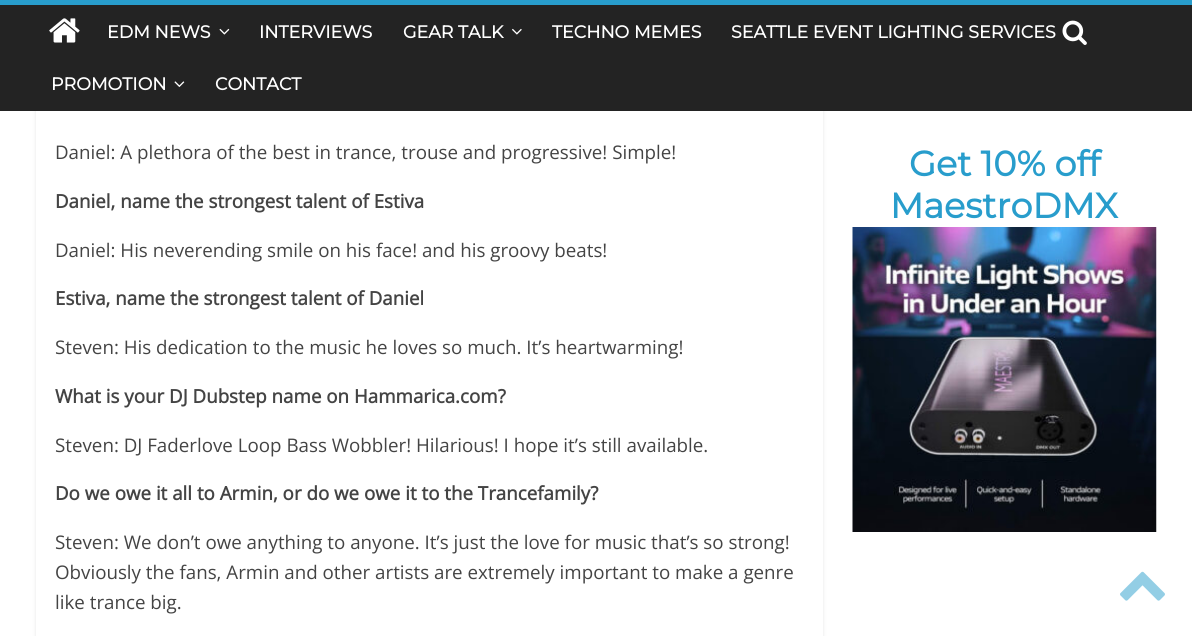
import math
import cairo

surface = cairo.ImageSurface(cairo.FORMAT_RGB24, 1192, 636)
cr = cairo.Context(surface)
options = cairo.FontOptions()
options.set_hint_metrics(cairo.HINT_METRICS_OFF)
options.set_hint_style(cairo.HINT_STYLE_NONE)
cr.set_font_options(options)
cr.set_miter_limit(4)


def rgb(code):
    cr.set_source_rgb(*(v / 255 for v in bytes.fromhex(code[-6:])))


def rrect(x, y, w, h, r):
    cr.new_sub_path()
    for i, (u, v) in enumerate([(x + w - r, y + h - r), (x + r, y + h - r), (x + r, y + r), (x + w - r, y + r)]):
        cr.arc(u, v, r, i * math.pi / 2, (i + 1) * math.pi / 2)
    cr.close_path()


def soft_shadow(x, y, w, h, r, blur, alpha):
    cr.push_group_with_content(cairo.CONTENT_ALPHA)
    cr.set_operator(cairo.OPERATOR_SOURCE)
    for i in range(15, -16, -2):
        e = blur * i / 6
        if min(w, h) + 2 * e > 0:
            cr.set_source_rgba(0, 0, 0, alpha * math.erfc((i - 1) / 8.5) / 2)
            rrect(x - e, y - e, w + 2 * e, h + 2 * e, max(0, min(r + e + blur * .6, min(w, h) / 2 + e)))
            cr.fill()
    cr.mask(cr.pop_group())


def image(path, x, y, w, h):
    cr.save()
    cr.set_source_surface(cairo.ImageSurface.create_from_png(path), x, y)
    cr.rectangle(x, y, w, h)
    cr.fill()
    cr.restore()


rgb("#ffffff")
cr.paint()
cr.save()
cr.set_fill_rule(cairo.FILL_RULE_EVEN_ODD)
cr.new_path()
cr.move_to(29, 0)
cr.line_to(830, 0)
cr.line_to(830, 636)
cr.line_to(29, 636)
cr.close_path()
cr.move_to(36, -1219)
cr.line_to(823, -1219)
cr.line_to(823, 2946)
cr.line_to(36, 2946)
cr.close_path()
cr.clip()
rgb("#000000")
soft_shadow(36, -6, 787, 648, 0, 2, 0.1)
cr.restore()
rgb("#232323")
cr.rectangle(0, 5, 1192, 106)
cr.fill()
rgb("#289dcc")
cr.rectangle(0, 0, 1192, 5)
cr.fill()
image("img/1.png", 49, 18, 31, 25)
image("img/2.png", 1062, 20, 25, 25)
image("img/3.png", 219, 28, 11, 7)
image("img/4.png", 512, 28, 10, 7)
image("img/5.png", 174, 81, 11, 6)
image("img/6.png", 852, 227, 305, 305)
image("img/7.png", 1120, 571, 45, 30)
cr.select_font_face("Montserrat", cairo.FONT_SLANT_NORMAL, cairo.FONT_WEIGHT_BOLD)
cr.set_font_size(17.5)
rgb("#ffffff")
for x, y, s in [
    (107, 38, "EDM NEWS"),
    (259, 38, "INTERVIEWS"),
    (403, 38, "GEAR TALK"),
    (552, 38, "TECHNO MEMES"),
    (731, 38, "SEATTLE EVENT LIGHTING SERVICES"),
    (51, 90, "PROMOTION"),
    (215, 90, "CONTACT"),
]:
    cr.move_to(x, y)
    cr.show_text(s)
cr.select_font_face("Open Sans")
cr.set_font_size(18.75)
rgb("#444444")
cr.move_to(55, 159)
cr.show_text("Daniel: A plethora of the best in trance, trouse and progressive! Simple!")
cr.select_font_face("Open Sans", cairo.FONT_SLANT_NORMAL, cairo.FONT_WEIGHT_BOLD)
cr.move_to(55, 208)
cr.show_text("Daniel, name the strongest talent of Estiva")
cr.select_font_face("Open Sans")
cr.move_to(55, 257)
cr.show_text("Daniel: His neverending smile on his face! and his groovy beats!")
cr.select_font_face("Open Sans", cairo.FONT_SLANT_NORMAL, cairo.FONT_WEIGHT_BOLD)
cr.move_to(55, 305)
cr.show_text("Estiva, name the strongest talent of Daniel")
cr.select_font_face("Open Sans")
cr.move_to(55, 354)
cr.show_text("Steven: His dedication to the music he loves so much. It’s heartwarming!")
cr.select_font_face("Open Sans", cairo.FONT_SLANT_NORMAL, cairo.FONT_WEIGHT_BOLD)
cr.move_to(55, 403)
cr.show_text("What is your DJ Dubstep name on Hammarica.com?")
cr.select_font_face("Open Sans")
cr.move_to(55, 452)
cr.show_text("Steven: DJ Faderlove Loop Bass Wobbler! Hilarious! I hope it’s still available.")
cr.select_font_face("Open Sans", cairo.FONT_SLANT_NORMAL, cairo.FONT_WEIGHT_BOLD)
cr.move_to(55, 500)
cr.show_text("Do we owe it all to Armin, or do we owe it to the Trancefamily?")
cr.select_font_face("Open Sans")
for x, y, s in [
    (55, 549, "Steven: We don’t owe anything to anyone. It’s just the love for music that’s so strong!"),
    (55, 579, "Obviously the fans, Armin and other artists are extremely important to make a genre"),
    (55, 609, "like trance big."),
]:
    cr.move_to(x, y)
    cr.show_text(s)
cr.select_font_face("Montserrat", cairo.FONT_SLANT_NORMAL, cairo.FONT_WEIGHT_BOLD)
cr.set_font_size(35)
rgb("#289dcc")
cr.move_to(909, 176)
cr.show_text("Get 10% off")
cr.move_to(890, 218)
cr.show_text("MaestroDMX")
surface.write_to_png("page.png")
